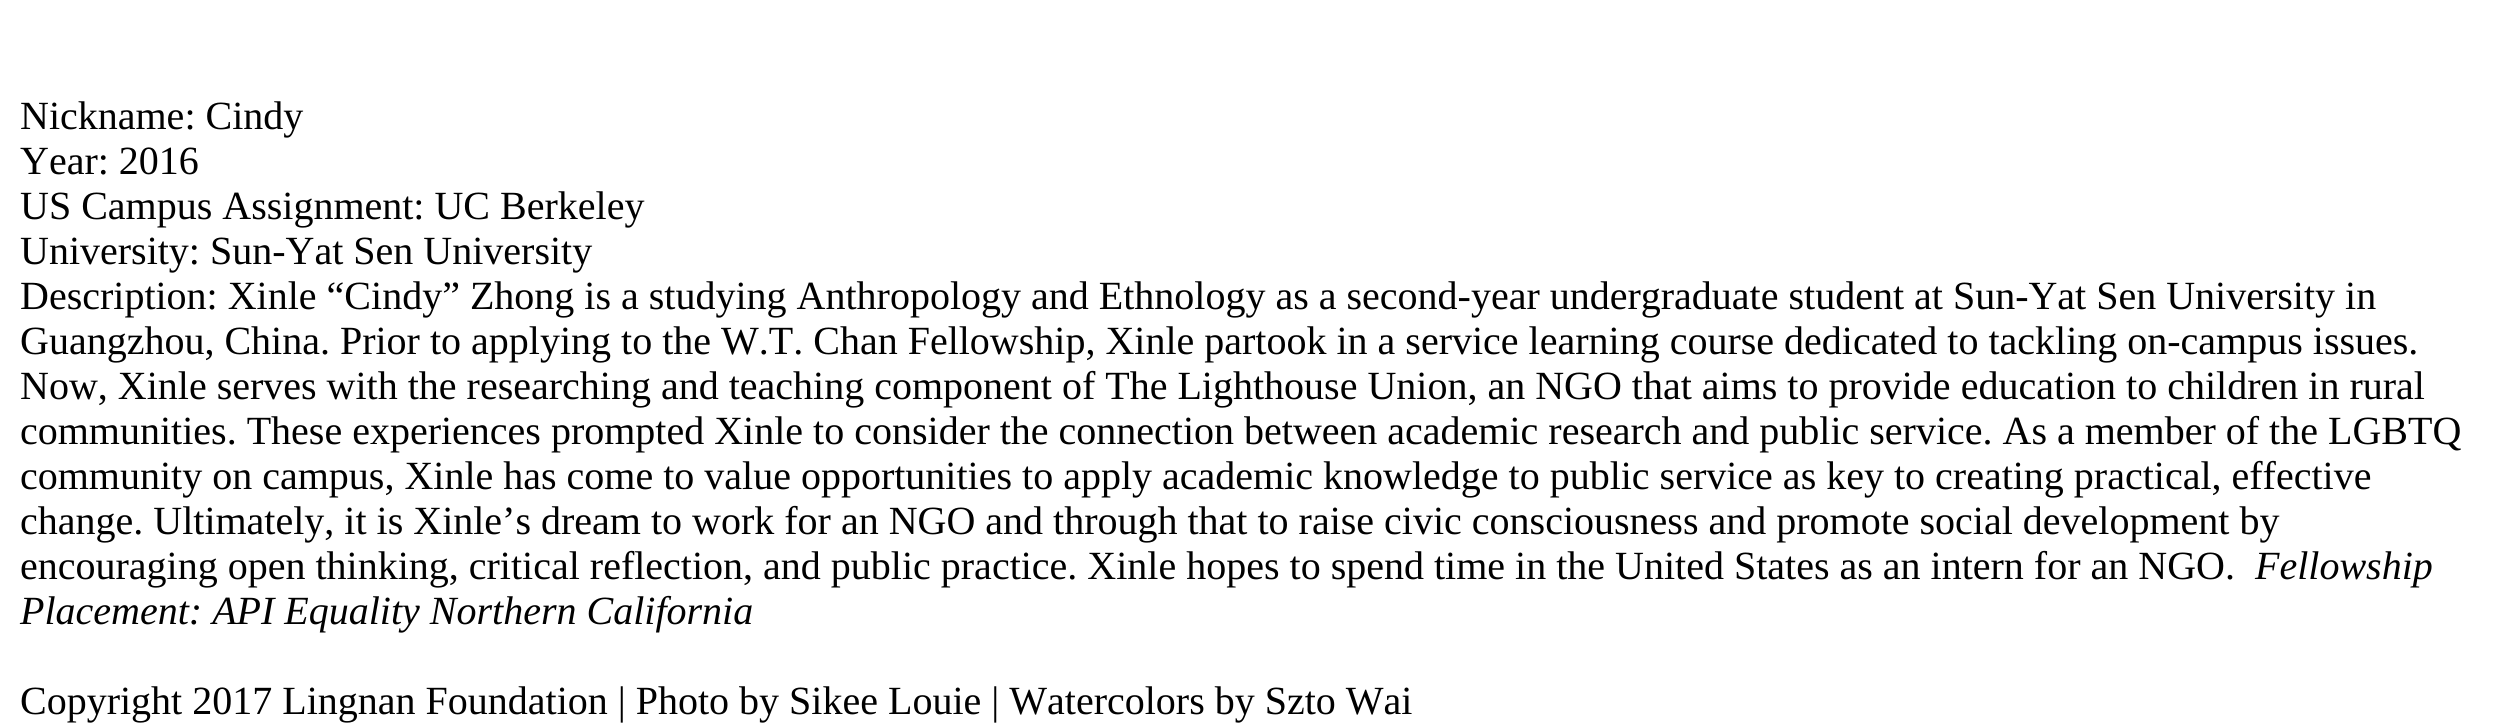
import math
import cairo

surface = cairo.ImageSurface(cairo.FORMAT_RGB24, 2497, 724)
cr = cairo.Context(surface)
options = cairo.FontOptions()
options.set_hint_metrics(cairo.HINT_METRICS_OFF)
options.set_hint_style(cairo.HINT_STYLE_NONE)
cr.set_font_options(options)
cr.set_miter_limit(4)


def rgb(code):
    cr.set_source_rgb(*(v / 255 for v in bytes.fromhex(code[-6:])))


rgb("#ffffff")
cr.paint()
cr.select_font_face("Liberation Serif")
cr.set_font_size(40)
rgb("#000000")
for x, y, s in [
    (20, 129, "Nickname: Cindy"),
    (20, 174, "Year: 2016"),
    (20, 219, "US Campus Assignment: UC Berkeley"),
    (20, 264, "University: Sun-Yat Sen University"),
    (20, 309, "Description: Xinle “Cindy” Zhong is a studying Anthropology and Ethnology as a second-year undergraduate student at Sun-Yat Sen University in"),
    (20, 354, "Guangzhou, China. Prior to applying to the W.T. Chan Fellowship, Xinle partook in a service learning course dedicated to tackling on-campus issues."),
    (20, 399, "Now, Xinle serves with the researching and teaching component of The Lighthouse Union, an NGO that aims to provide education to children in rural"),
    (20, 444, "communities. These experiences prompted Xinle to consider the connection between academic research and public service. As a member of the LGBTQ"),
    (20, 489, "community on campus, Xinle has come to value opportunities to apply academic knowledge to public service as key to creating practical, effective"),
    (20, 534, "change. Ultimately, it is Xinle’s dream to work for an NGO and through that to raise civic consciousness and promote social development by"),
    (20, 579, "encouraging open thinking, critical reflection, and public practice. Xinle hopes to spend time in the United States as an intern for an NGO."),
]:
    cr.move_to(x, y)
    cr.show_text(s)
cr.select_font_face("Liberation Serif", cairo.FONT_SLANT_ITALIC)
cr.move_to(2255, 579)
cr.show_text("Fellowship")
cr.move_to(20, 624)
cr.show_text("Placement: API Equality Northern California")
cr.select_font_face("Liberation Serif")
cr.move_to(20, 714)
cr.show_text("Copyright 2017 Lingnan Foundation | Photo by Sikee Louie | Watercolors by Szto Wai")
surface.write_to_png("page.png")
